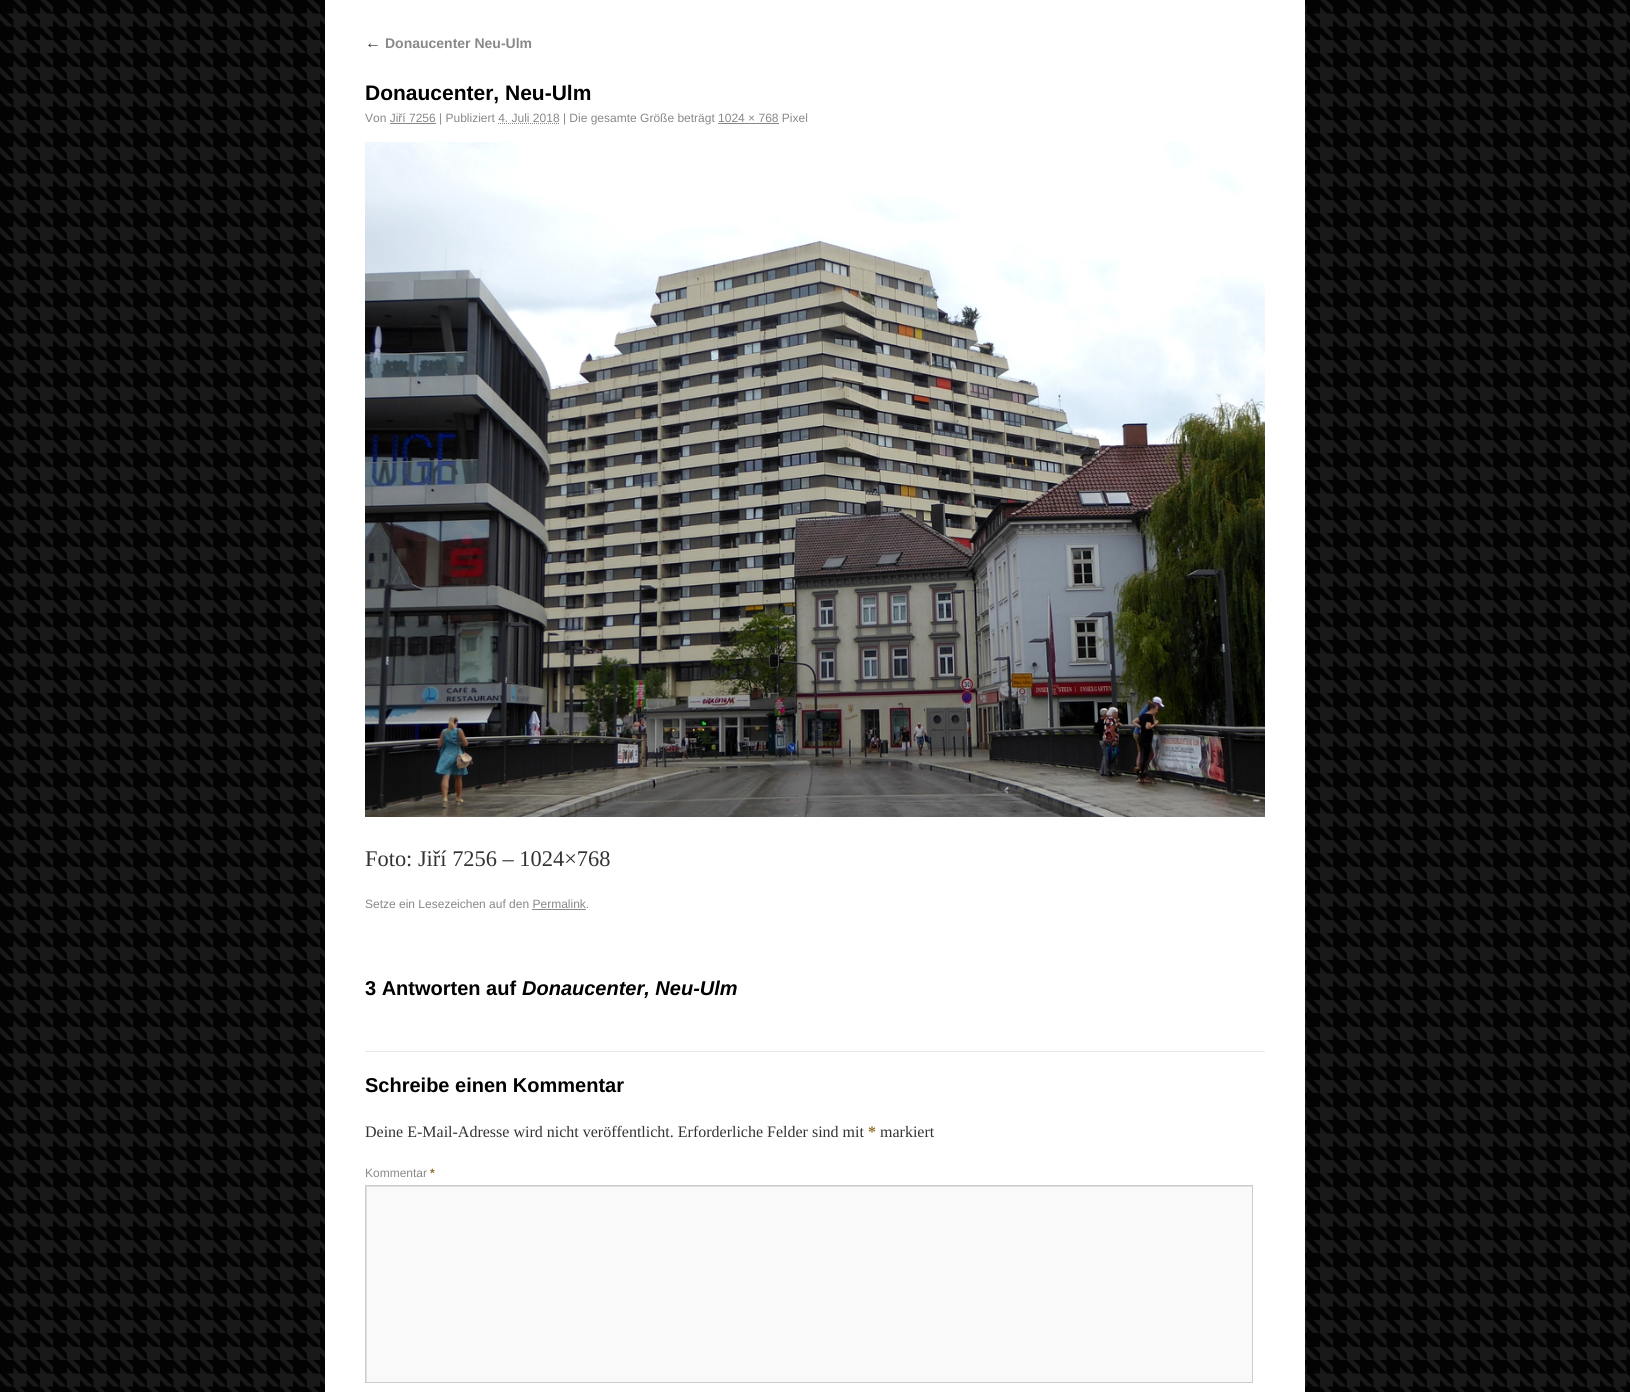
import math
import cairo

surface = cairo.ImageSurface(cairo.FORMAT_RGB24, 1630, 1392)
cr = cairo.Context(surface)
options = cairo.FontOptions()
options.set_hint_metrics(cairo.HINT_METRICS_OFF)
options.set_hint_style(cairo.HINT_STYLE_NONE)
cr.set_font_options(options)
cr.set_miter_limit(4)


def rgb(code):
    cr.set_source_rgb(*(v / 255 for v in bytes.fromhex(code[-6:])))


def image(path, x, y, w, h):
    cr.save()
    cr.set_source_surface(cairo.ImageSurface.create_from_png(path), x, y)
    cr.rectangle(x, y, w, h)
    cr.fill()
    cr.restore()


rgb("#ffffff")
cr.paint()
image("img/1.png", 0, 0, 1630, 1392)
rgb("#ffffff")
cr.rectangle(325, 0, 980, 1392)
cr.fill()
rgb("#888888")
cr.rectangle(390, 123, 46, 1)
cr.fill()
cr.new_path()
cr.move_to(498, 123.5)
cr.line_to(559.5, 123.5)
cr.set_line_width(1)
cr.set_dash([1, 1])
cr.stroke()
cr.rectangle(718, 123, 61, 1)
cr.fill()
image("img/2.png", 365, 142, 900, 675)
for x, y, w, h, color in [
    (532, 909, 54, 1, "#888888"),
    (365, 1051, 900, 1, "#e7e7e7"),
    (367, 1187, 885, 195, "#f9f9f9"),
]:
    rgb(color)
    cr.rectangle(x, y, w, h)
    cr.fill()
cr.save()
cr.rectangle(366, 1186, 886, 196)
cr.clip()
rgb("#e0e0e0")
cr.set_fill_rule(cairo.FILL_RULE_EVEN_ODD)
cr.new_path()
cr.move_to(267, 1087)
cr.line_to(1351, 1087)
cr.line_to(1351, 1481)
cr.line_to(267, 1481)
cr.close_path()
cr.move_to(367, 1187)
cr.line_to(1253, 1187)
cr.line_to(1253, 1383)
cr.line_to(367, 1383)
cr.close_path()
cr.fill()
cr.restore()
cr.rectangle(365.5, 1185.5, 887, 197)
rgb("#cccccc")
cr.set_dash([])
cr.stroke()
cr.select_font_face("Liberation Serif", cairo.FONT_SLANT_ITALIC)
cr.set_font_size(16)
rgb("#333333")
cr.move_to(365, 48)
cr.show_text("←")
cr.select_font_face("Liberation Sans", cairo.FONT_SLANT_NORMAL, cairo.FONT_WEIGHT_BOLD)
cr.set_font_size(14)
rgb("#888888")
cr.move_to(385, 48)
cr.show_text("Donaucenter Neu-Ulm")
cr.set_font_size(21)
rgb("#000000")
cr.move_to(365, 100)
cr.show_text("Donaucenter, Neu-Ulm")
cr.select_font_face("Liberation Sans")
cr.set_font_size(12)
rgb("#888888")
cr.move_to(365, 122)
cr.show_text("Von Jiří 7256 | Publiziert 4. Juli 2018 | Die gesamte Größe beträgt 1024 × 768 Pixel")
cr.select_font_face("Liberation Serif")
cr.set_font_size(22.4)
rgb("#333333")
cr.move_to(365, 866)
cr.show_text("Foto: Jiří 7256 – 1024×768")
cr.select_font_face("Liberation Sans")
cr.set_font_size(12)
rgb("#888888")
cr.move_to(365, 908)
cr.show_text("Setze ein Lesezeichen auf den Permalink.")
cr.select_font_face("Liberation Sans", cairo.FONT_SLANT_NORMAL, cairo.FONT_WEIGHT_BOLD)
cr.set_font_size(20)
rgb("#000000")
cr.move_to(365, 995)
cr.show_text("3 Antworten auf")
cr.select_font_face("Liberation Sans", cairo.FONT_SLANT_ITALIC, cairo.FONT_WEIGHT_BOLD)
cr.move_to(522, 995)
cr.show_text("Donaucenter, Neu-Ulm")
cr.select_font_face("Liberation Sans", cairo.FONT_SLANT_NORMAL, cairo.FONT_WEIGHT_BOLD)
cr.move_to(365, 1092)
cr.show_text("Schreibe einen Kommentar")
cr.select_font_face("Liberation Serif")
cr.set_font_size(16)
rgb("#333333")
cr.move_to(365, 1137)
cr.show_text("Deine E-Mail-Adresse wird nicht veröffentlicht. Erforderliche Felder sind mit")
cr.select_font_face("Liberation Serif", cairo.FONT_SLANT_NORMAL, cairo.FONT_WEIGHT_BOLD)
rgb("#91732d")
cr.move_to(868, 1137)
cr.show_text("*")
cr.select_font_face("Liberation Serif")
rgb("#333333")
cr.move_to(880, 1137)
cr.show_text("markiert")
cr.select_font_face("Liberation Sans")
cr.set_font_size(12)
rgb("#888888")
cr.move_to(365, 1177)
cr.show_text("Kommentar")
cr.select_font_face("Liberation Sans", cairo.FONT_SLANT_NORMAL, cairo.FONT_WEIGHT_BOLD)
rgb("#91732d")
cr.move_to(430, 1177)
cr.show_text("*")
surface.write_to_png("page.png")
